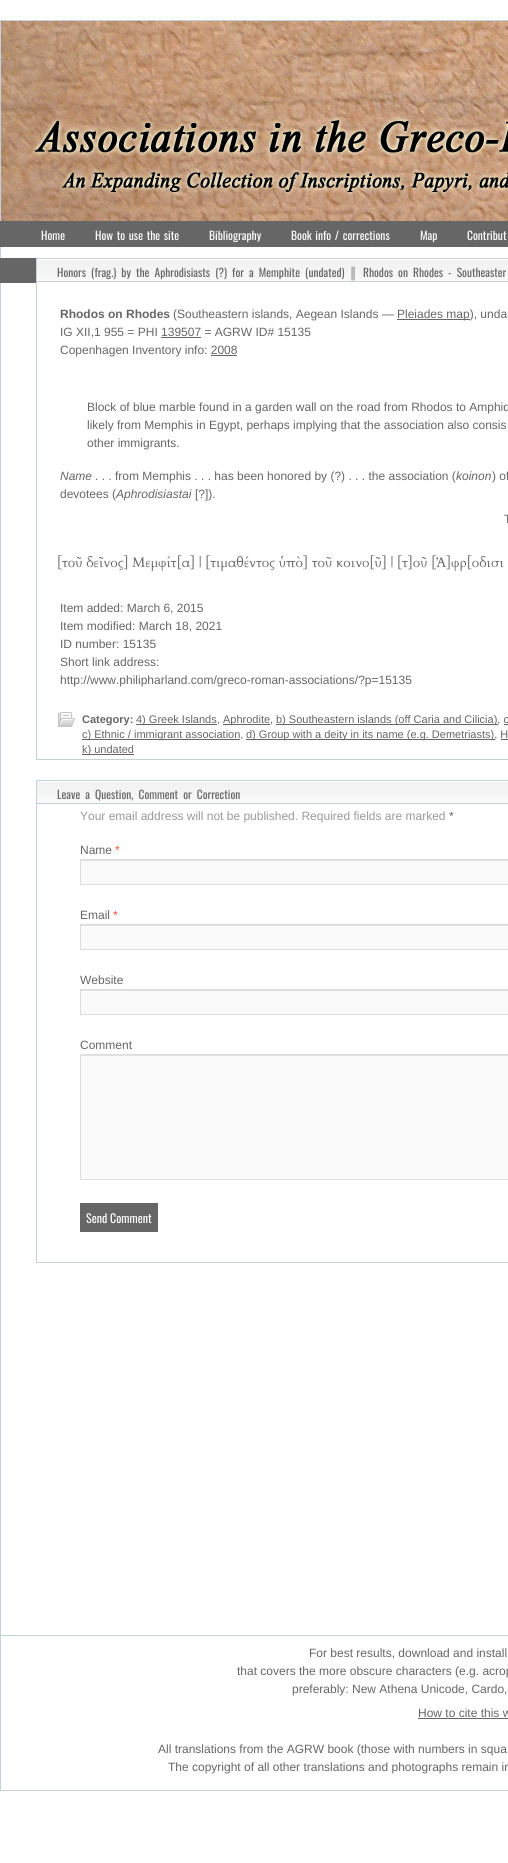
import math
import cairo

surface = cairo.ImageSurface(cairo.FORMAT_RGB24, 508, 1863)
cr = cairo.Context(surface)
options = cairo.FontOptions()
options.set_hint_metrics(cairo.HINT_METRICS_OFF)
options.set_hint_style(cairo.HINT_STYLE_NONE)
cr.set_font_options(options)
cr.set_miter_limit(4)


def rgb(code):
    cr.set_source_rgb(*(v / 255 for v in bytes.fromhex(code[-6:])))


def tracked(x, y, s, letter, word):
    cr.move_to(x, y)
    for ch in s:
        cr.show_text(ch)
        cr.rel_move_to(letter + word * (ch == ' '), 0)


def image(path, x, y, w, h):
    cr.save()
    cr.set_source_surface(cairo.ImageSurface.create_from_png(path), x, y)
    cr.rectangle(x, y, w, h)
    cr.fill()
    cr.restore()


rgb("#ffffff")
cr.paint()
cr.rectangle(0.5, 20.5, 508, 1615)
rgb("#c5d1d9")
cr.set_line_width(1)
cr.stroke()
image("img/1.png", 1, 21, 507, 200)
rgb("#666666")
cr.rectangle(0, 221, 508, 26)
cr.fill()
cr.rectangle(0, 258, 36, 25)
cr.fill()
cr.rectangle(36.5, 258.5, 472, 501)
rgb("#c5d1d9")
cr.stroke()
image("img/2.png", 37, 260, 471, 21)
for x, y, w, h, color in [
    (37, 281, 471, 1, "#c5d1d9"),
    (397, 319, 73, 1, "#666666"),
    (161, 337, 40, 1, "#666666"),
    (211, 355, 26, 1, "#666666"),
]:
    rgb(color)
    cr.rectangle(x, y, w, h)
    cr.fill()
image("img/3.png", 58, 712, 17, 15)
for x, y, w, h, color in [
    (136, 724, 81, 1, "#666666"),
    (223, 724, 47, 1, "#666666"),
    (276, 724, 222, 1, "#666666"),
    (504, 724, 4, 1, "#666666"),
    (82, 739, 158, 1, "#666666"),
    (246, 739, 249, 1, "#666666"),
    (501, 739, 7, 1, "#666666"),
    (82, 754, 52, 1, "#666666"),
]:
    rgb(color)
    cr.rectangle(x, y, w, h)
    cr.fill()
cr.rectangle(36.5, 780.5, 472, 482)
rgb("#c5d1d9")
cr.stroke()
image("img/2.png", 37, 782, 471, 21)
for x, y, w, h, color in [
    (37, 803, 471, 1, "#c5d1d9"),
    (81, 861, 427, 23, "#fafafa"),
    (81, 860, 427, 1, "#e1e1e1"),
]:
    rgb(color)
    cr.rectangle(x, y, w, h)
    cr.fill()
cr.rectangle(80.5, 859.5, 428, 25)
rgb("#dddddd")
cr.stroke()
rgb("#fafafa")
cr.rectangle(81, 926, 427, 23)
cr.fill()
rgb("#e1e1e1")
cr.rectangle(81, 925, 427, 1)
cr.fill()
cr.rectangle(80.5, 924.5, 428, 25)
rgb("#dddddd")
cr.stroke()
rgb("#fafafa")
cr.rectangle(81, 991, 427, 23)
cr.fill()
rgb("#e1e1e1")
cr.rectangle(81, 990, 427, 1)
cr.fill()
cr.rectangle(80.5, 989.5, 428, 25)
rgb("#dddddd")
cr.stroke()
rgb("#fafafa")
cr.rectangle(81, 1056, 427, 123)
cr.fill()
rgb("#e1e1e1")
cr.rectangle(81, 1055, 427, 1)
cr.fill()
cr.rectangle(80.5, 1054.5, 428, 125)
rgb("#dddddd")
cr.stroke()
for x, y, w, h, color in [
    (80, 1203, 78, 29, "#666666"),
    (0, 1790, 508, 1, "#c5d1d9"),
    (0, 1636, 1, 155, "#c5d1d9"),
    (418, 1718, 90, 1, "#666666"),
]:
    rgb(color)
    cr.rectangle(x, y, w, h)
    cr.fill()
cr.select_font_face("Oswald")
cr.set_font_size(11.5)
rgb("#ffffff")
cr.move_to(41, 240)
cr.show_text("Home")
tracked(95, 240, "How to use the site", 0, 1)
cr.move_to(209, 240)
cr.show_text("Bibliography")
tracked(291, 240, "Book info / corrections", 0, 1)
cr.move_to(420, 240)
cr.show_text("Map")
cr.move_to(467, 240)
cr.show_text("Contribut")
cr.set_font_size(11.4)
rgb("#666666")
tracked(57, 277, "Honors (frag.) by the Aphrodisiasts (?) for a Memphite (undated)", 0, 2.5)
cr.select_font_face("Liberation Sans", cairo.FONT_SLANT_NORMAL, cairo.FONT_WEIGHT_BOLD)
cr.move_to(349, 277)
cr.show_text("║")
cr.select_font_face("Oswald")
tracked(363, 277, "Rhodos on Rhodes - Southeaster", 0, 2.5)
cr.select_font_face("Liberation Sans", cairo.FONT_SLANT_NORMAL, cairo.FONT_WEIGHT_BOLD)
cr.set_font_size(12)
cr.move_to(60, 318)
cr.show_text("Rhodos on Rhodes")
cr.select_font_face("Liberation Sans")
for x, y, s in [
    (173, 318, "(Southeastern islands, Aegean Islands —"),
    (397, 318, "Pleiades map), unda"),
    (60, 336, "IG XII,1 955 = PHI 139507 = AGRW ID# 15135"),
    (60, 354, "Copenhagen Inventory info: 2008"),
    (87, 411, "Block of blue marble found in a garden wall on the road from Rhodos to Amphid"),
    (87, 429, "likely from Memphis in Egypt, perhaps implying that the association also consis"),
    (87, 447, "other immigrants."),
]:
    cr.move_to(x, y)
    cr.show_text(s)
cr.select_font_face("Liberation Sans", cairo.FONT_SLANT_ITALIC)
cr.move_to(60, 480)
cr.show_text("Name")
cr.select_font_face("Liberation Sans")
cr.move_to(95, 480)
cr.show_text(". . . from Memphis . . . has been honored by (?) . . . the association (")
cr.select_font_face("Liberation Sans", cairo.FONT_SLANT_ITALIC)
cr.move_to(456, 480)
cr.show_text("koinon")
cr.select_font_face("Liberation Sans")
cr.move_to(492, 480)
cr.show_text(") of")
cr.move_to(60, 498)
cr.show_text("devotees (")
cr.select_font_face("Liberation Sans", cairo.FONT_SLANT_ITALIC)
cr.move_to(116, 498)
cr.show_text("Aphrodisiastai")
cr.select_font_face("Liberation Sans")
cr.move_to(195, 498)
cr.show_text("[?]).")
cr.move_to(504, 523)
cr.show_text("T")
cr.select_font_face("Cardo")
cr.set_font_size(13.8)
cr.move_to(57, 567)
cr.show_text("[τοῦ δεῖνος] Μεμφίτ[α] | [τιμαθέντος ὑπὸ] τοῦ κοινο[ῦ] | [τ]οῦ [Ἀ]φρ[οδισι")
cr.select_font_face("Liberation Sans")
cr.set_font_size(12)
for x, y, s in [
    (60, 612, "Item added: March 6, 2015"),
    (60, 630, "Item modified: March 18, 2021"),
    (60, 648, "ID number: 15135"),
    (60, 666, "Short link address:"),
    (60, 684, "http://www.philipharland.com/greco-roman-associations/?p=15135"),
]:
    cr.move_to(x, y)
    cr.show_text(s)
cr.select_font_face("Liberation Sans", cairo.FONT_SLANT_NORMAL, cairo.FONT_WEIGHT_BOLD)
cr.set_font_size(11)
cr.move_to(82, 723)
cr.show_text("Category:")
cr.select_font_face("Liberation Sans")
for x, y, s in [
    (136, 723, "4) Greek Islands,"),
    (223, 723, "Aphrodite,"),
    (276, 723, "b) Southeastern islands (off Caria and Cilicia), c"),
    (82, 738, "c) Ethnic / immigrant association,"),
    (246, 738, "d) Group with a deity in its name (e.g. Demetriasts), H"),
    (82, 753, "k) undated"),
]:
    cr.move_to(x, y)
    cr.show_text(s)
cr.select_font_face("Oswald")
cr.set_font_size(11.4)
tracked(57, 799, "Leave a Question, Comment or Correction", 0, 2.5)
cr.select_font_face("Liberation Sans")
cr.set_font_size(12)
rgb("#999999")
cr.move_to(80, 820)
cr.show_text("Your email address will not be published. Required fields are marked")
rgb("#666666")
cr.move_to(449, 820)
cr.show_text("*")
cr.move_to(80, 854)
cr.show_text("Name")
rgb("#ff4b33")
cr.move_to(115, 854)
cr.show_text("*")
rgb("#666666")
cr.move_to(80, 919)
cr.show_text("Email")
rgb("#ff4b33")
cr.move_to(113, 919)
cr.show_text("*")
rgb("#666666")
cr.move_to(80, 984)
cr.show_text("Website")
cr.move_to(80, 1049)
cr.show_text("Comment")
cr.select_font_face("Oswald")
rgb("#ffffff")
cr.move_to(86, 1223)
cr.show_text("Send Comment")
cr.select_font_face("Liberation Sans")
rgb("#666666")
for x, y, s in [
    (309, 1657, "For best results, download and install"),
    (237, 1675, "that covers the more obscure characters (e.g. acrop"),
    (292, 1693, "preferably: New Athena Unicode, Cardo,"),
    (418, 1717, "How to cite this w"),
    (158, 1753, "All translations from the AGRW book (those with numbers in squa"),
    (168, 1771, "The copyright of all other translations and photographs remain in"),
]:
    cr.move_to(x, y)
    cr.show_text(s)
surface.write_to_png("page.png")
